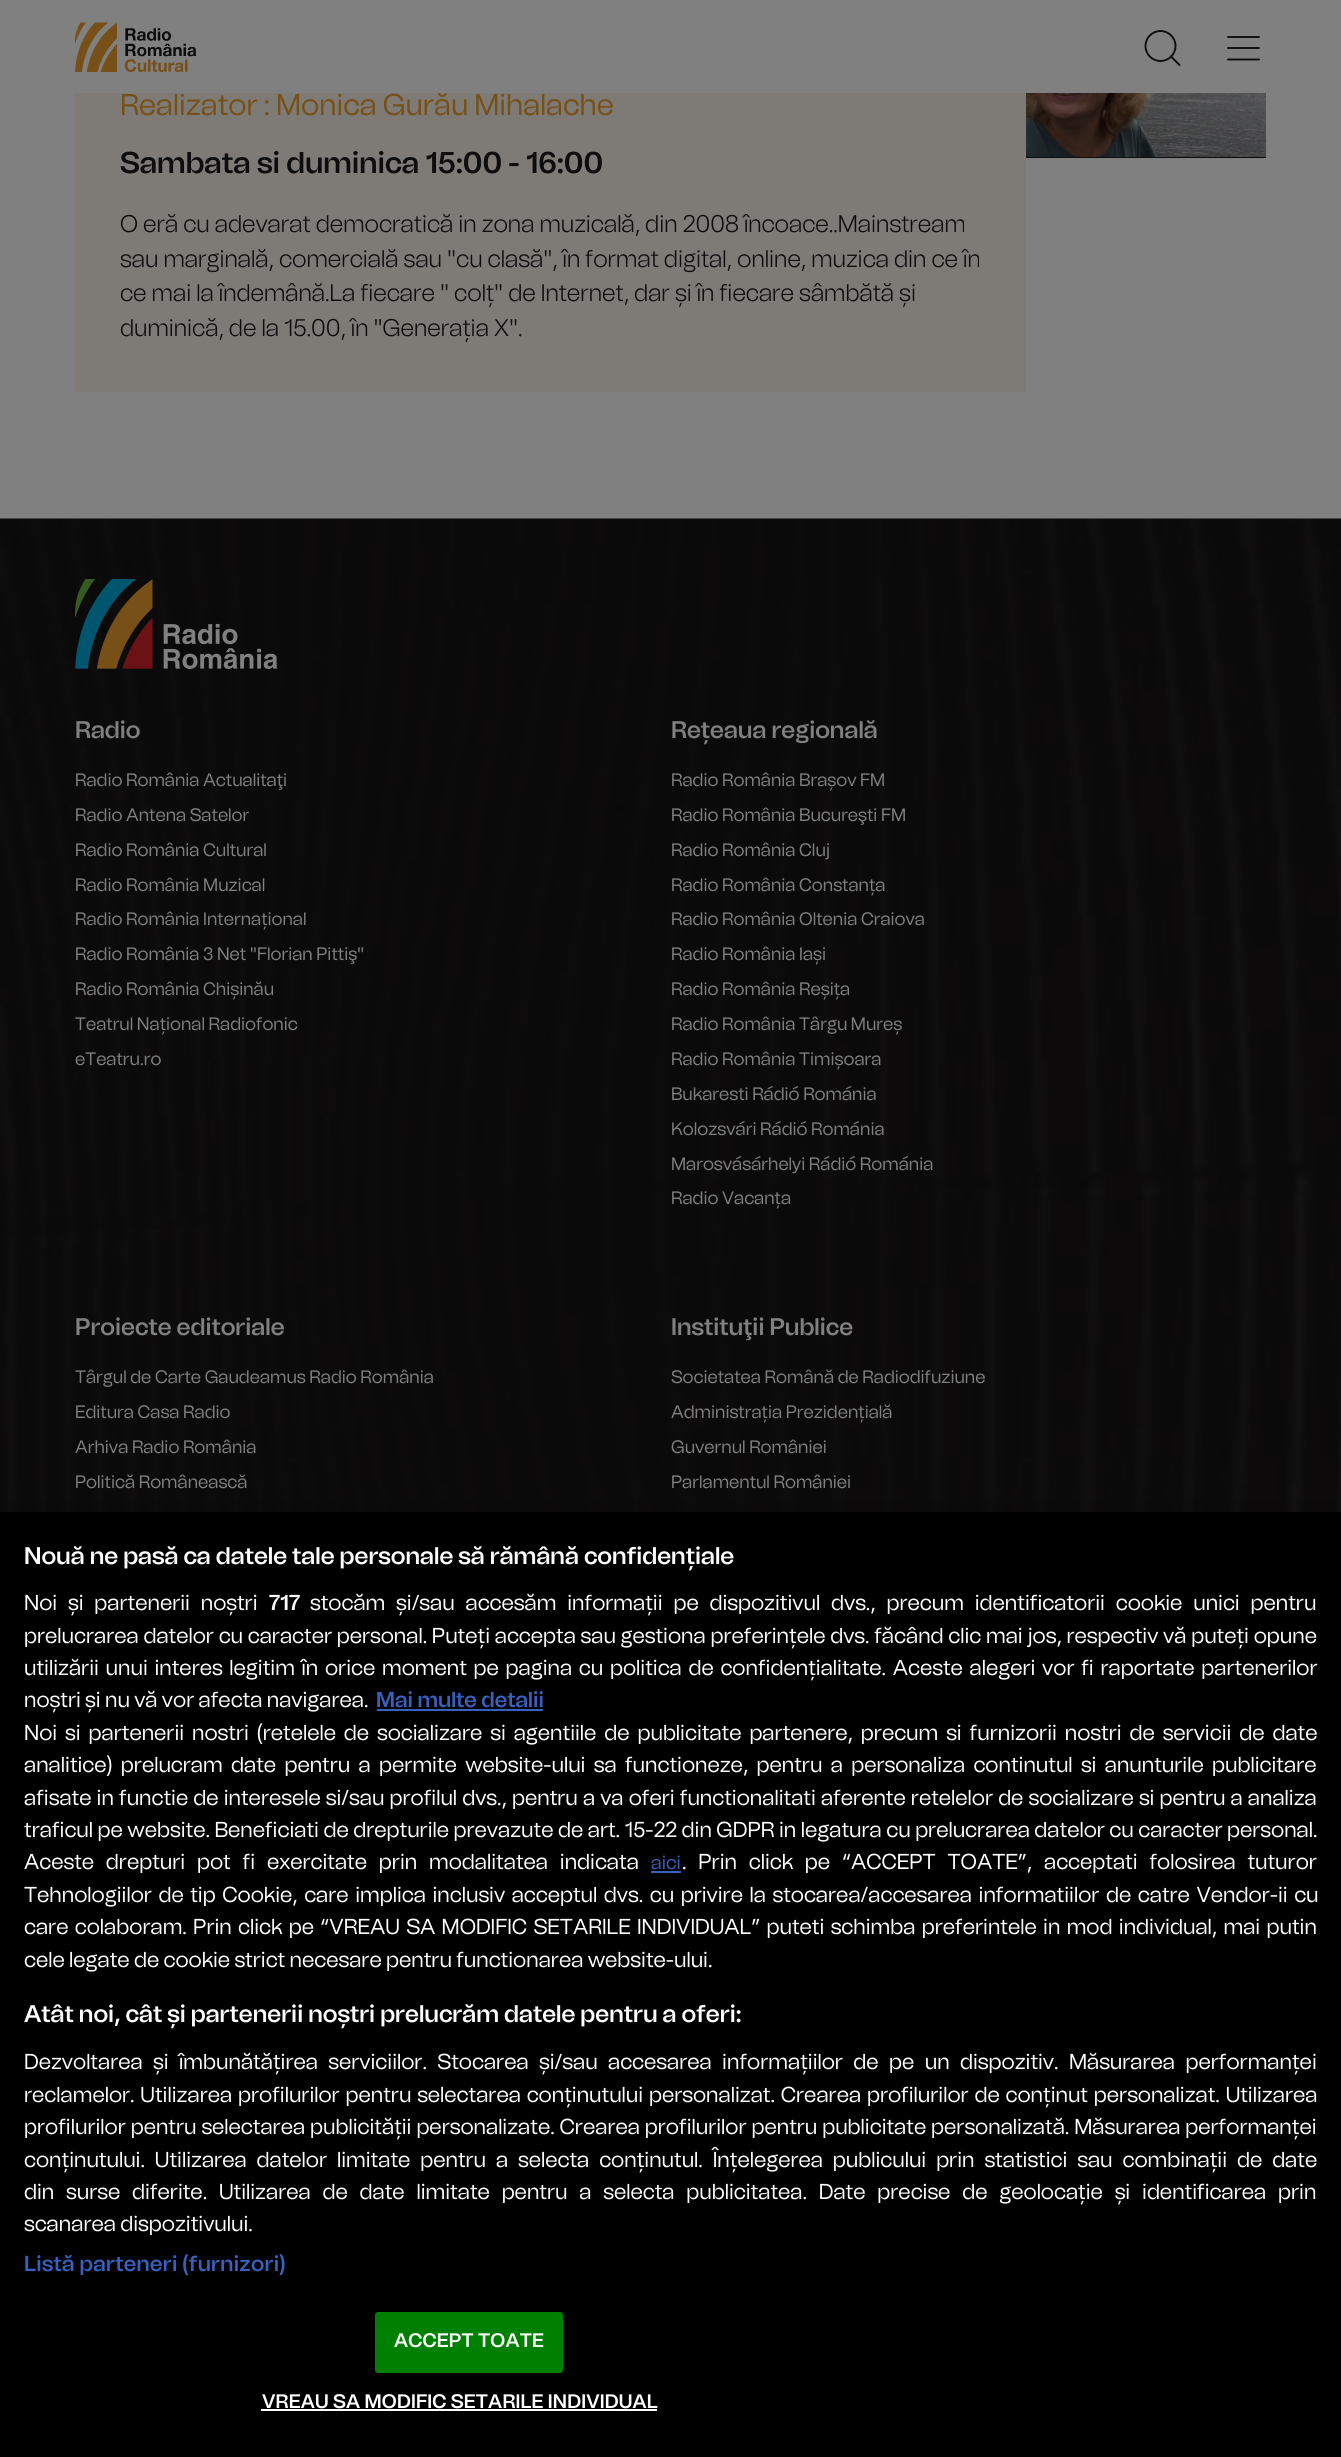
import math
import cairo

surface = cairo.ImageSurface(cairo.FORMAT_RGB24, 1341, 2457)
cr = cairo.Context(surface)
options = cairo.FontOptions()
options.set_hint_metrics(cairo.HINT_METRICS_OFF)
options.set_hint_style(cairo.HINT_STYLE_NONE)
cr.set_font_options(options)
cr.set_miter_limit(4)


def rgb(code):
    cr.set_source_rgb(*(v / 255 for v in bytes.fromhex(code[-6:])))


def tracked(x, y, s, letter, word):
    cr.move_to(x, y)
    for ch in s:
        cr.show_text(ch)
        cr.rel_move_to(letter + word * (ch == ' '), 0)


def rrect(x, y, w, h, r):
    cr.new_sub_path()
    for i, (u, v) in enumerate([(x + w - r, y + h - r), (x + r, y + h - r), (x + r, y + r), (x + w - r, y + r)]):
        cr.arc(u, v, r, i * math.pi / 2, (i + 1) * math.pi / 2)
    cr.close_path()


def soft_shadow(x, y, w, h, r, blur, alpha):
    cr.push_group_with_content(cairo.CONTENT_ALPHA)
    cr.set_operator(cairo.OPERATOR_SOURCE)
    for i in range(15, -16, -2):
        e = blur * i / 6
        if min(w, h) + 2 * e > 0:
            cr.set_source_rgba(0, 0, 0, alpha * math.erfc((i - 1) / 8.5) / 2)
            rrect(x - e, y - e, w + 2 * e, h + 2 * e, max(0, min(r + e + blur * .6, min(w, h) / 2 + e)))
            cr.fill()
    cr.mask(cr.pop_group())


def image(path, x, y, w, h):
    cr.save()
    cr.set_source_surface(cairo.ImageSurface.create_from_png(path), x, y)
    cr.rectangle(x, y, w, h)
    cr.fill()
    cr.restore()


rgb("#808080")
cr.paint()
image("img/1.png", 75, 22, 121, 50)
cr.arc(1160.5, 46, 15, 0, 2 * math.pi)
rgb("#0d0d0d")
cr.set_line_width(1.9)
cr.stroke()
cr.new_path()
cr.move_to(1171, 56.5)
cr.line_to(1179.5, 65)
cr.set_line_cap(cairo.LINE_CAP_ROUND)
cr.set_line_join(cairo.LINE_JOIN_ROUND)
cr.stroke()
cr.new_path()
cr.move_to(1228, 48)
cr.line_to(1259, 48)
cr.move_to(1228, 37)
cr.line_to(1259, 37)
cr.move_to(1228, 59.5)
cr.line_to(1259, 59.5)
cr.stroke()
rgb("#7e7b77")
cr.rectangle(75, 93, 951, 299)
cr.fill()
rgb("#0d0d0d")
cr.rectangle(1026, 157, 240, 1)
cr.fill()
image("img/2.png", 1026, 93, 240, 64)
image("img/3.png", 0, 518, 1341, 994)
image("img/4.png", 75, 579, 203, 90)
rgb("#000000")
soft_shadow(0, 1512, 1341, 945, 0, 13.5, 0.2)
for x, y, w, h, color in [
    (0, 1512, 1341, 945, "#000000"),
    (377, 1709, 166, 2, "#3860be"),
    (651, 1871, 30, 2, "#3860be"),
]:
    rgb(color)
    cr.rectangle(x, y, w, h)
    cr.fill()
rgb("#008000")
rrect(376, 2313, 186, 59, 2)
cr.fill_preserve()
cr.set_line_width(2)
cr.set_line_cap(cairo.LINE_CAP_BUTT)
cr.set_line_join(cairo.LINE_JOIN_MITER)
cr.stroke()
rgb("#ffffff")
cr.rectangle(261, 2409, 396, 2)
cr.fill()
cr.select_font_face("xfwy")
cr.set_font_size(30)
rgb("#775017")
cr.move_to(120, 115)
cr.show_text("Realizator : Monica Gurău Mihalache")
rgb("#808080")
cr.rectangle(437, 92, 10, 1)
cr.fill()
cr.select_font_face("xfwy SemiBold")
rgb("#0d0d0d")
cr.move_to(120, 173)
cr.show_text("Sambata si duminica 15:00 - 16:00")
cr.select_font_face("xfwy Light")
cr.set_font_size(24)
for x, y, s in [
    (120, 232, "O eră cu adevarat democratică in zona muzicală, din 2008 încoace..Mainstream"),
    (120, 267, "sau marginală, comercială sau \"cu clasă\", în format digital, online, muzica din ce în"),
    (120, 301, "ce mai la îndemână.La fiecare \" colț\" de Internet, dar și în fiecare sâmbătă și"),
    (120, 336, "duminică, de la 15.00, în \"Generația X\"."),
]:
    cr.move_to(x, y)
    cr.show_text(s)
cr.select_font_face("xfwy SemiBold")
rgb("#808080")
cr.move_to(75, 738)
cr.show_text("Radio")
cr.select_font_face("xfwy")
cr.set_font_size(18)
for x, y, s in [
    (75, 786, "Radio România Actualitaţi"),
    (75, 821, "Radio Antena Satelor"),
    (75, 856, "Radio România Cultural"),
    (75, 891, "Radio România Muzical"),
    (75, 925, "Radio România Internațional"),
    (75, 960, "Radio România 3 Net \"Florian Pittiş\""),
    (75, 995, "Radio România Chișinău"),
    (75, 1030, "Teatrul Național Radiofonic"),
    (75, 1065, "eTeatru.ro"),
]:
    cr.move_to(x, y)
    cr.show_text(s)
cr.select_font_face("xfwy SemiBold")
cr.set_font_size(24)
cr.move_to(671, 738)
cr.show_text("Rețeaua regională")
cr.select_font_face("xfwy")
cr.set_font_size(18)
for x, y, s in [
    (671, 786, "Radio România Brașov FM"),
    (671, 821, "Radio România Bucureşti FM"),
    (671, 856, "Radio România Cluj"),
    (671, 891, "Radio România Constanța"),
    (671, 925, "Radio România Oltenia Craiova"),
    (671, 960, "Radio România Iași"),
    (671, 995, "Radio România Reșița"),
    (671, 1030, "Radio România Târgu Mureș"),
    (671, 1065, "Radio România Timișoara"),
    (671, 1100, "Bukaresti Rádió Románia"),
    (671, 1135, "Kolozsvári Rádió Románia"),
    (671, 1170, "Marosvásárhelyi Rádió Románia"),
    (671, 1204, "Radio Vacanța"),
]:
    cr.move_to(x, y)
    cr.show_text(s)
cr.select_font_face("xfwy SemiBold")
cr.set_font_size(24)
cr.move_to(75, 1335)
cr.show_text("Proiecte editoriale")
cr.select_font_face("xfwy")
cr.set_font_size(18)
for x, y, s in [
    (75, 1383, "Târgul de Carte Gaudeamus Radio România"),
    (75, 1418, "Editura Casa Radio"),
    (75, 1453, "Arhiva Radio România"),
    (75, 1488, "Politică Românească"),
]:
    cr.move_to(x, y)
    cr.show_text(s)
cr.select_font_face("xfwy SemiBold")
cr.set_font_size(24)
cr.move_to(671, 1335)
cr.show_text("Instituţii Publice")
cr.select_font_face("xfwy")
cr.set_font_size(18)
for x, y, s in [
    (671, 1383, "Societatea Română de Radiodifuziune"),
    (671, 1418, "Administrația Prezidențială"),
    (671, 1453, "Guvernul României"),
    (671, 1488, "Parlamentul României"),
]:
    cr.move_to(x, y)
    cr.show_text(s)
cr.select_font_face("xfwy SemiBold")
cr.set_font_size(24)
rgb("#ffffff")
cr.move_to(24, 1564)
cr.show_text("Nouă ne pasă ca datele tale personale să rămână confidențiale")
cr.select_font_face("xfwy")
cr.set_font_size(21.6)
tracked(24, 1610, "Noi și partenerii noștri", 0, 6.5)
cr.select_font_face("xfwy SemiBold")
cr.move_to(269, 1610)
cr.show_text("717")
cr.select_font_face("xfwy")
tracked(310, 1610, "stocăm și/sau accesăm informații pe dispozitivul dvs., precum identificatorii cookie unici pentru", 0, 6.5)
tracked(24, 1643, "prelucrarea datelor cu caracter personal. Puteți accepta sau gestiona preferințele dvs. făcând clic mai jos, respectiv vă puteți opune", 0, 0.4)
tracked(24, 1675, "utilizării unui interes legitim în orice moment pe pagina cu politica de confidențialitate. Aceste alegeri vor fi raportate partenerilor", 0, 2.4)
cr.move_to(24, 1707)
cr.show_text("noștri și nu vă vor afecta navigarea.")
cr.select_font_face("xfwy SemiBold")
rgb("#3860be")
cr.move_to(376, 1707)
cr.show_text("Mai multe detalii")
cr.select_font_face("xfwy")
rgb("#ffffff")
tracked(24, 1740, "Noi si partenerii nostri (retelele de socializare si agentiile de publicitate partenere, precum si furnizorii nostri de servicii de date", 0, 3.6)
tracked(24, 1772, "analitice) prelucram date pentru a permite website-ului sa functioneze, pentru a personaliza continutul si anunturile publicitare", 0, 4)
tracked(24, 1805, "afisate in functie de interesele si/sau profilul dvs., pentru a va oferi functionalitati aferente retelelor de socializare si pentru a analiza", 0, 0.8)
tracked(24, 1837, "traficul pe website. Beneficiati de drepturile prevazute de art. 15-22 din GDPR in legatura cu prelucrarea datelor cu caracter personal.", 0, 0.2)
tracked(24, 1869, "Aceste drepturi pot fi exercitate prin modalitatea indicata", 0, 7.5)
cr.set_font_size(19)
rgb("#3860be")
cr.move_to(651, 1869)
cr.show_text("aici")
cr.set_font_size(21.6)
rgb("#ffffff")
tracked(682, 1869, ". Prin click pe “ACCEPT TOATE”, acceptati folosirea tuturor", 0, 7.5)
tracked(24, 1902, "Tehnologiilor de tip Cookie, care implica inclusiv acceptul dvs. cu privire la stocarea/accesarea informatiilor de catre Vendor-ii cu", 0, 2.25)
tracked(24, 1934, "care colaboram. Prin click pe “VREAU SA MODIFIC SETARILE INDIVIDUAL” puteti schimba preferintele in mod individual, mai putin", 0, 2)
cr.move_to(24, 1967)
cr.show_text("cele legate de cookie strict necesare pentru functionarea website-ului.")
cr.select_font_face("xfwy SemiBold")
cr.set_font_size(24)
cr.move_to(24, 2022)
cr.show_text("Atât noi, cât și partenerii noștri prelucrăm datele pentru a oferi:")
cr.select_font_face("xfwy")
cr.set_font_size(21.6)
tracked(24, 2069, "Dezvoltarea și îmbunătățirea serviciilor. Stocarea și/sau accesarea informațiilor de pe un dispozitiv. Măsurarea performanței", 0, 6.1)
tracked(24, 2102, "reclamelor. Utilizarea profilurilor pentru selectarea conținutului personalizat. Crearea profilurilor de conținut personalizat. Utilizarea", 0, 1.5)
tracked(24, 2134, "profilurilor pentru selectarea publicității personalizate. Crearea profilurilor pentru publicitate personalizată. Măsurarea performanței", 0, 0.6)
tracked(24, 2167, "conținutului. Utilizarea datelor limitate pentru a selecta conținutul. Înțelegerea publicului prin statistici sau combinații de date", 0, 5.6)
tracked(24, 2199, "din surse diferite. Utilizarea de date limitate pentru a selecta publicitatea. Date precise de geolocație și identificarea prin", 0, 7.5)
cr.move_to(24, 2231)
cr.show_text("scanarea dispozitivului.")
cr.select_font_face("xfwy SemiBold")
rgb("#3860be")
tracked(24, 2271, "Listă parteneri (furnizori)", 0.25, 0)
cr.set_font_size(19.5)
rgb("#ffffff")
tracked(394, 2347, "ACCEPT TOATE", 0.2, 0)
tracked(262, 2408, "VREAU SA MODIFIC SETARILE INDIVIDUAL", 0.2, 0)
surface.write_to_png("page.png")
